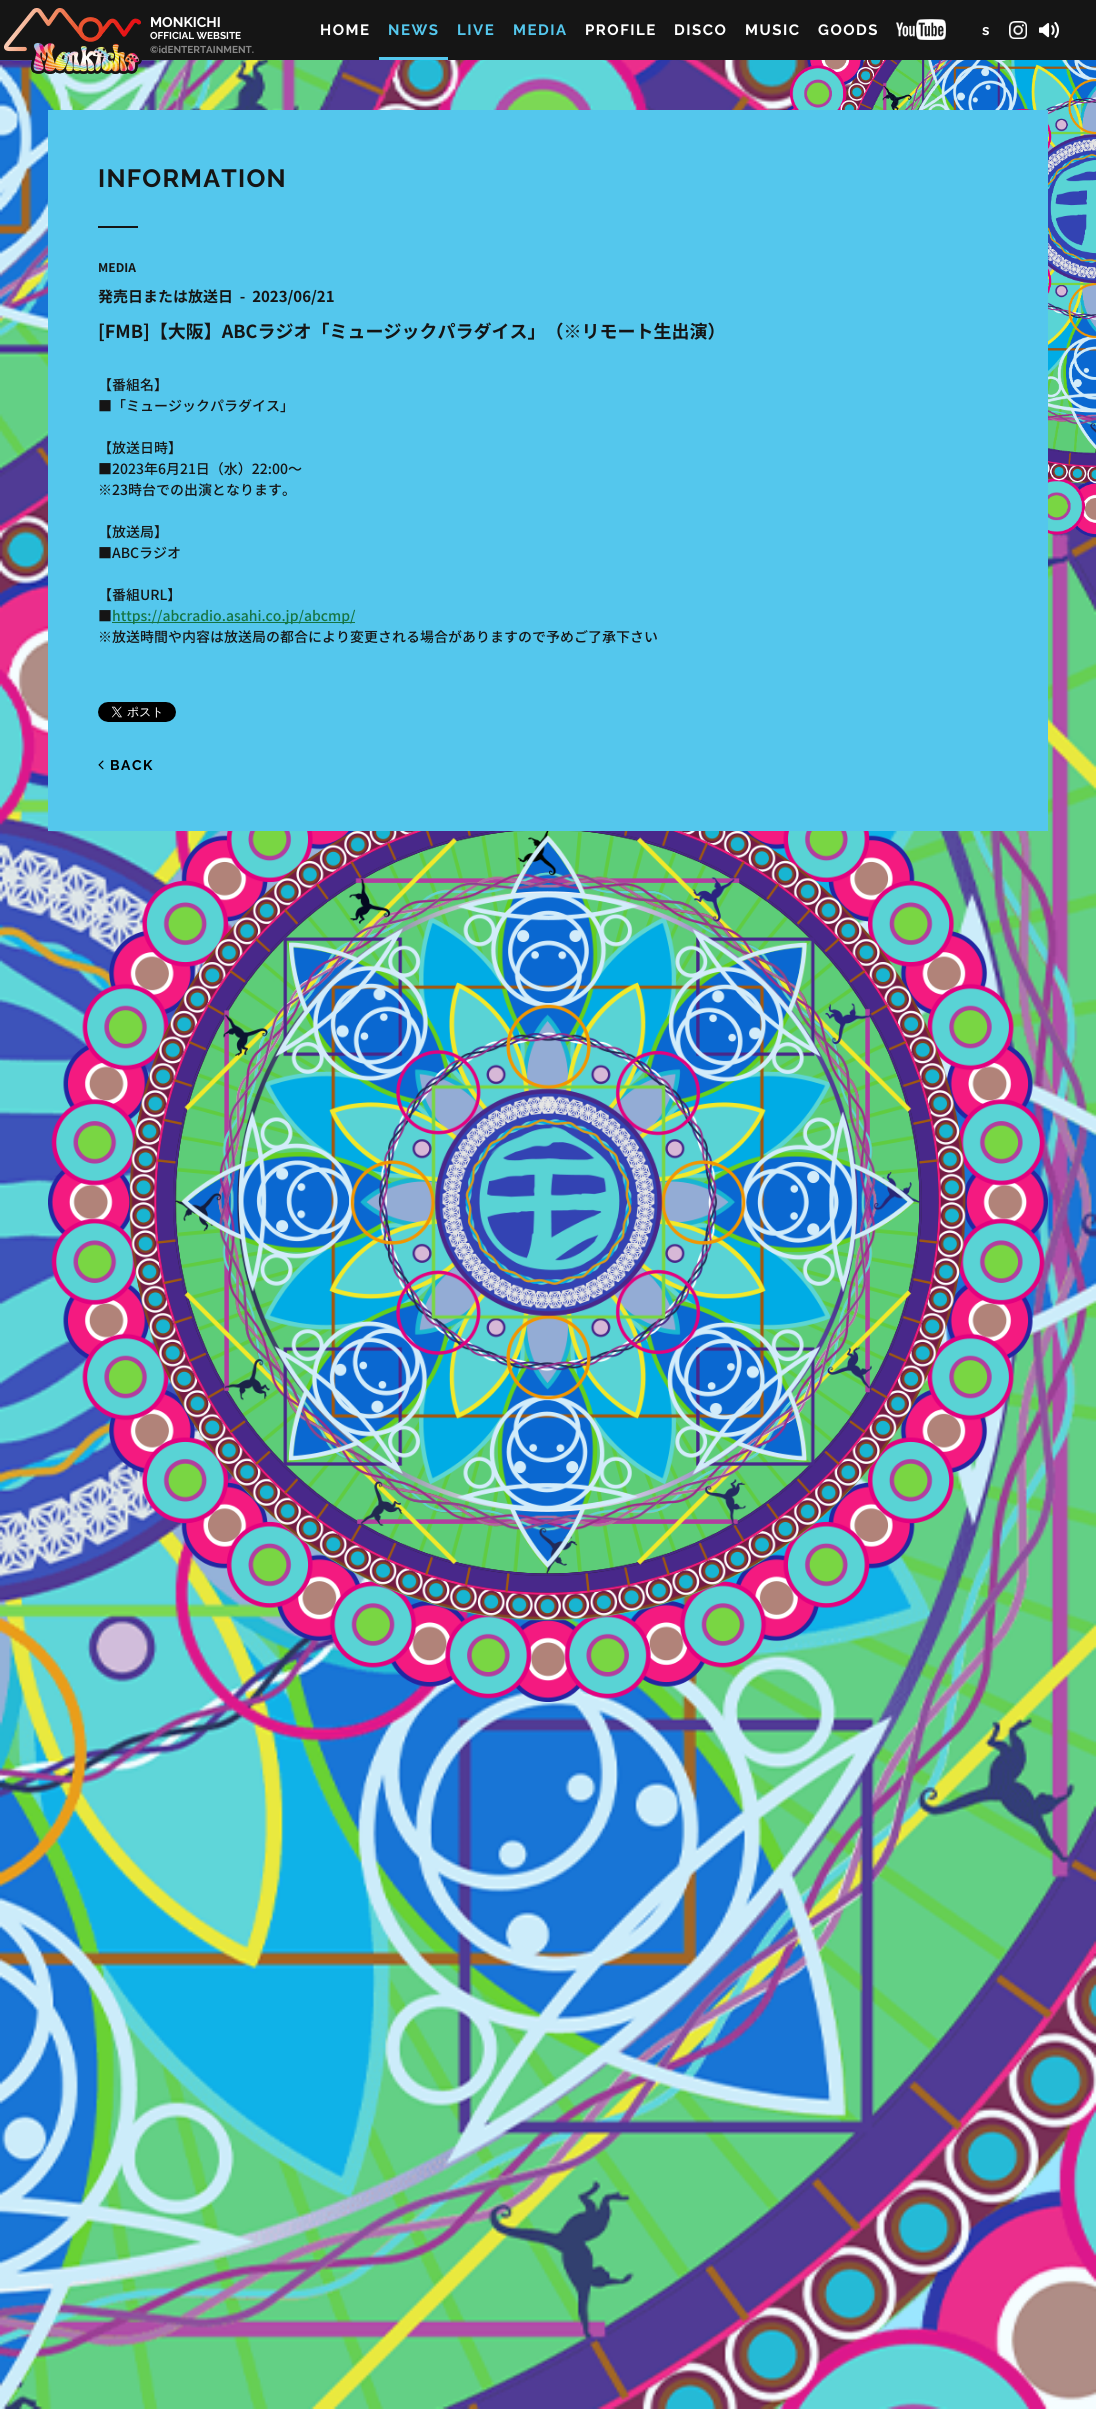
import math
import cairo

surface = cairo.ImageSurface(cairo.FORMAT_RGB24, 1096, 2409)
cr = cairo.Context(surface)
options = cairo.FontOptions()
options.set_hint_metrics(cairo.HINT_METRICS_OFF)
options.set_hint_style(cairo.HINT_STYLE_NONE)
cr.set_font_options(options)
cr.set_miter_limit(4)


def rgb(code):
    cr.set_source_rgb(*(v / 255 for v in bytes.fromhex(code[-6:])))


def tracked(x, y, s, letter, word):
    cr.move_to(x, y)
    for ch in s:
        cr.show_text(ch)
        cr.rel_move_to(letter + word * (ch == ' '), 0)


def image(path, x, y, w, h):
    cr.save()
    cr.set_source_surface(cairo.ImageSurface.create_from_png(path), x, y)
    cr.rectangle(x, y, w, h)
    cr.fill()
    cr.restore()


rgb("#9be6ff")
cr.paint()
rgb("#151515")
cr.rectangle(0, 0, 1096, 60)
cr.fill()
image("img/6.png", 0, 60, 1096, 2349)
image("img/1.png", 4, 8, 138, 66)
image("img/2.png", 4, 8, 138, 66)
image("img/3.png", 896, 19, 50, 21)
rgb("#54c7ed")
cr.rectangle(379, 57, 69, 3)
cr.fill()
image("img/4.png", 1009, 21, 18, 18)
image("img/5.png", 1039, 22, 20, 16)
image("img/7.png", 786, 60, 310, 478)
image("img/8.png", 48, 831, 1000, 871)
image("img/9.png", 129, 831, 837, 790)
image("img/10.png", 129, 831, 837, 789)
image("img/11.png", 175, 831, 745, 743)
image("img/12.png", 350, 1004, 396, 396)
for x, y, w, h, color in [
    (48, 110, 1000, 721, "#54c7ed"),
    (98, 226, 40, 2, "#151515"),
    (112, 622, 243, 1, "#167544"),
]:
    rgb(color)
    cr.rectangle(x, y, w, h)
    cr.fill()
image("img/13.png", 98, 702, 78, 20)
image("img/14.png", 98, 760, 6, 10)
cr.select_font_face("Raleway", cairo.FONT_SLANT_NORMAL, cairo.FONT_WEIGHT_BOLD)
cr.set_font_size(14)
rgb("#ffffff")
cr.move_to(150, 27)
cr.show_text("MONKICHI")
cr.set_font_size(10)
cr.move_to(150, 39)
cr.show_text("OFFICIAL WEBSITE")
rgb("#888888")
cr.move_to(150, 53)
cr.show_text("©idENTERTAINMENT.")
cr.set_font_size(15)
rgb("#ffffff")
tracked(320, 35, "HOME", 1.5, 0)
rgb("#54c7ed")
for x, y, s in [
    (388, 35, "NEWS"),
    (457, 35, "LIVE"),
    (513, 35, "MEDIA"),
]:
    tracked(x, y, s, 1.5, 0)
rgb("#ffffff")
for x, y, s in [
    (585, 35, "PROFILE"),
    (674, 35, "DISCO"),
    (745, 35, "MUSIC"),
    (818, 35, "GOODS"),
    (982, 35, "s"),
]:
    tracked(x, y, s, 1.5, 0)
cr.set_font_size(25)
rgb("#151515")
tracked(98, 187, "INFORMATION", 1.25, 0)
cr.select_font_face("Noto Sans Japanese", cairo.FONT_SLANT_NORMAL, cairo.FONT_WEIGHT_BOLD)
cr.set_font_size(12)
cr.move_to(98, 272)
cr.show_text("MEDIA")
cr.set_font_size(15)
cr.move_to(98, 302)
cr.show_text("発売日または放送日  -  2023/06/21")
cr.set_font_size(18)
cr.move_to(98, 338)
cr.show_text("[FMB]【大阪】ABCラジオ「ミュージックパラダイス」（※リモート生出演）")
cr.select_font_face("Noto Sans Japanese Medium")
cr.set_font_size(14)
for x, y, s in [
    (98, 390, "【番組名】"),
    (98, 411, "■「ミュージックパラダイス」"),
    (98, 453, "【放送日時】"),
    (98, 474, "■2023年6月21日（水）22:00〜"),
    (98, 495, "※23時台での出演となります。"),
    (98, 537, "【放送局】"),
    (98, 558, "■ABCラジオ"),
    (98, 600, "【番組URL】"),
    (98, 621, "■"),
]:
    cr.move_to(x, y)
    cr.show_text(s)
rgb("#167544")
cr.move_to(112, 621)
cr.show_text("https://abcradio.asahi.co.jp/abcmp/")
rgb("#151515")
cr.move_to(98, 642)
cr.show_text("※放送時間や内容は放送局の都合により変更される場合がありますので予めご了承下さい")
cr.select_font_face("Raleway", cairo.FONT_SLANT_NORMAL, cairo.FONT_WEIGHT_BOLD)
rgb("#000000")
tracked(110, 770, "BACK", 1.5, 0)
surface.write_to_png("page.png")
